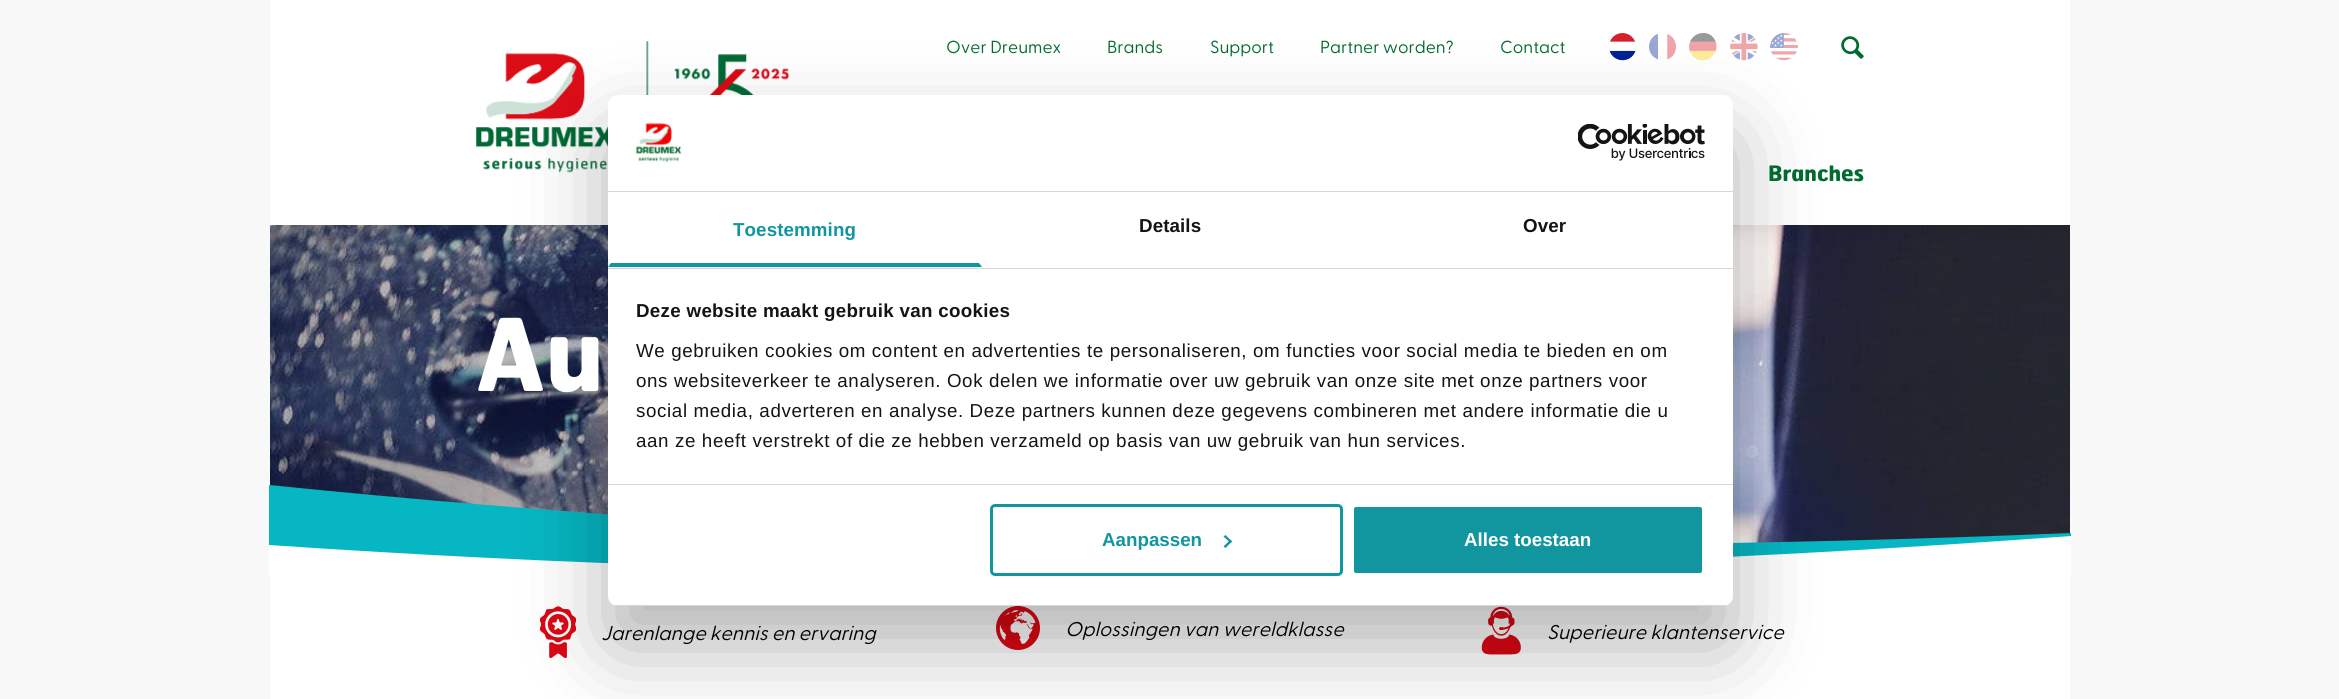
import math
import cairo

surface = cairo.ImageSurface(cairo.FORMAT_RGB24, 2339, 699)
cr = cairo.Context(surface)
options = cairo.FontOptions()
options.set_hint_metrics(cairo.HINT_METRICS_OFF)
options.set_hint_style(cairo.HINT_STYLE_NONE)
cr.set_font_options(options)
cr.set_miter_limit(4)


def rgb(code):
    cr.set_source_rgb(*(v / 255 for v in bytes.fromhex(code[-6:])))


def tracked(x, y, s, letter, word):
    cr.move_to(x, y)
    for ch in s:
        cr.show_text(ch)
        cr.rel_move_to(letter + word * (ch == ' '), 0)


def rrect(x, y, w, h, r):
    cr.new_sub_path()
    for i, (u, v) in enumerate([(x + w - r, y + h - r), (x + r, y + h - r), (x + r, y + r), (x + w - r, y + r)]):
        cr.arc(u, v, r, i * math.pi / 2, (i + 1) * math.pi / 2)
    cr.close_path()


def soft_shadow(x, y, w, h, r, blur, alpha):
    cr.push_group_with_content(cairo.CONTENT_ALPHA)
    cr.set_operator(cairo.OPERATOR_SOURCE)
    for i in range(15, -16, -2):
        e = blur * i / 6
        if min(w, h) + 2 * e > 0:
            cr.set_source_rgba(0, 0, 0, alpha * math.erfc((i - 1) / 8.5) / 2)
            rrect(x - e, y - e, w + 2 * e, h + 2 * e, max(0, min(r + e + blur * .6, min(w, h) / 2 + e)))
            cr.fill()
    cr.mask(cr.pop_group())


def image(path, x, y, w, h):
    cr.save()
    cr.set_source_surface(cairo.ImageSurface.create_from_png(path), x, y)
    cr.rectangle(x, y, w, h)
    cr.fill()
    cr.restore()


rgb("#f8f8f8")
cr.paint()
rgb("#ffffff")
cr.rectangle(270, 0, 1800, 699)
cr.fill()
image("img/1.png", 476, 41, 314, 132)
image("img/2.png", 1609, 33, 27, 28)
image("img/3.png", 1649, 34, 27, 26)
image("img/4.png", 1689, 33, 28, 28)
image("img/5.png", 1730, 33, 28, 28)
image("img/6.png", 1770, 33, 28, 28)
image("img/7.png", 1841, 36, 23, 23)
image("img/8.png", 270, 225, 1800, 318)
cr.new_path()
cr.move_to(269, 504)
cr.curve_to(839, 550, 1439, 561, 2071, 534)
cr.line_to(2071, 576)
cr.line_to(269, 576)
cr.close_path()
cr.fill()
rgb("#06b6c2")
cr.new_path()
cr.move_to(269, 485)
cr.curve_to(839, 543, 1439, 559, 2071, 533)
cr.line_to(2071, 536)
cr.curve_to(1456, 581, 855, 585, 269, 545)
cr.close_path()
cr.fill()
image("img/9.png", 540, 606, 36, 52)
image("img/10.png", 996, 606, 44, 44)
image("img/11.png", 1481, 606, 40, 49)
rgb("#000000")
soft_shadow(608, 135, 1125, 511, 10, 42.5, 0.3)
rgb("#ffffff")
rrect(608, 95, 1125, 511, 10)
cr.fill()
rgb("#d6d6d6")
cr.rectangle(608, 191, 1125, 1)
cr.fill()
image("img/12.png", 635, 122, 47, 41)
image("img/13.png", 1578, 124, 127, 37)
cr.rectangle(608, 268, 1125, 1)
cr.fill()
rgb("#11959f")
cr.new_path()
cr.move_to(982, 267)
cr.line_to(608, 267)
cr.line_to(611, 263)
cr.line_to(979, 263)
cr.close_path()
cr.fill()
rgb("#d6d6d6")
cr.rectangle(608, 484, 1125, 1)
cr.fill()
cr.save()
rrect(608, 95, 1125, 511, 10)
cr.clip()
cr.rectangle(608, 605, 1125, 1)
cr.fill()
cr.restore()
rrect(991.5, 505.5, 350, 69, 3.5)
rgb("#11959f")
cr.set_line_width(3)
cr.stroke()
cr.new_path()
cr.move_to(1225.5, 535)
cr.line_to(1232, 541.5)
cr.line_to(1230.5, 543)
cr.line_to(1223.5, 536.5)
cr.close_path()
cr.fill()
cr.new_path()
cr.move_to(1230.5, 539.5)
cr.line_to(1232, 541.5)
cr.line_to(1225.5, 548)
cr.line_to(1223.5, 546.5)
cr.close_path()
cr.fill()
rrect(1352.5, 505.5, 351, 69, 3.5)
cr.fill_preserve()
rgb("#ffffff")
cr.stroke()
cr.select_font_face("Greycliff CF")
cr.set_font_size(17.5)
rgb("#006b2f")
for x, y, s in [
    (946, 53, "Over Dreumex"),
    (1107, 53, "Brands"),
    (1210, 53, "Support"),
    (1320, 53, "Partner worden?"),
    (1500, 53, "Contact"),
]:
    cr.move_to(x, y)
    cr.show_text(s)
cr.select_font_face("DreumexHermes", cairo.FONT_SLANT_NORMAL, cairo.FONT_WEIGHT_BOLD)
cr.set_font_size(21.25)
cr.move_to(1768, 181)
cr.show_text("Branches")
cr.set_font_size(100)
rgb("#ffffff")
cr.move_to(476, 391)
cr.show_text("Au")
cr.select_font_face("Greycliff CF", cairo.FONT_SLANT_ITALIC)
cr.set_font_size(20)
rgb("#000000")
for x, y, s in [
    (601, 640, "Jarenlange kennis en ervaring"),
    (1065, 636, "Oplossingen van wereldklasse"),
    (1547, 639, "Superieure klantenservice"),
]:
    cr.move_to(x, y)
    cr.show_text(s)
cr.select_font_face("Liberation Sans", cairo.FONT_SLANT_NORMAL, cairo.FONT_WEIGHT_BOLD)
cr.set_font_size(18.75)
rgb("#11959f")
tracked(733, 236, "Toestemming", 0.1, 0)
rgb("#141414")
tracked(1139, 232, "Details", 0.1, 0)
tracked(1523, 232, "Over", 0.1, 0)
tracked(636, 317, "Deze website maakt gebruik van cookies", 0.3, 0)
cr.select_font_face("Liberation Sans")
for x, y, s in [
    (636, 357, "We gebruiken cookies om content en advertenties te personaliseren, om functies voor social media te bieden en om"),
    (636, 387, "ons websiteverkeer te analyseren. Ook delen we informatie over uw gebruik van onze site met onze partners voor"),
    (636, 417, "social media, adverteren en analyse. Deze partners kunnen deze gegevens combineren met andere informatie die u"),
    (636, 447, "aan ze heeft verstrekt of die ze hebben verzameld op basis van uw gebruik van hun services."),
]:
    tracked(x, y, s, 0.62, 0)
cr.select_font_face("Liberation Sans", cairo.FONT_SLANT_NORMAL, cairo.FONT_WEIGHT_BOLD)
rgb("#11959f")
cr.move_to(1102, 546)
cr.show_text("Aanpassen")
rgb("#ffffff")
cr.move_to(1464, 546)
cr.show_text("Alles toestaan")
surface.write_to_png("page.png")
